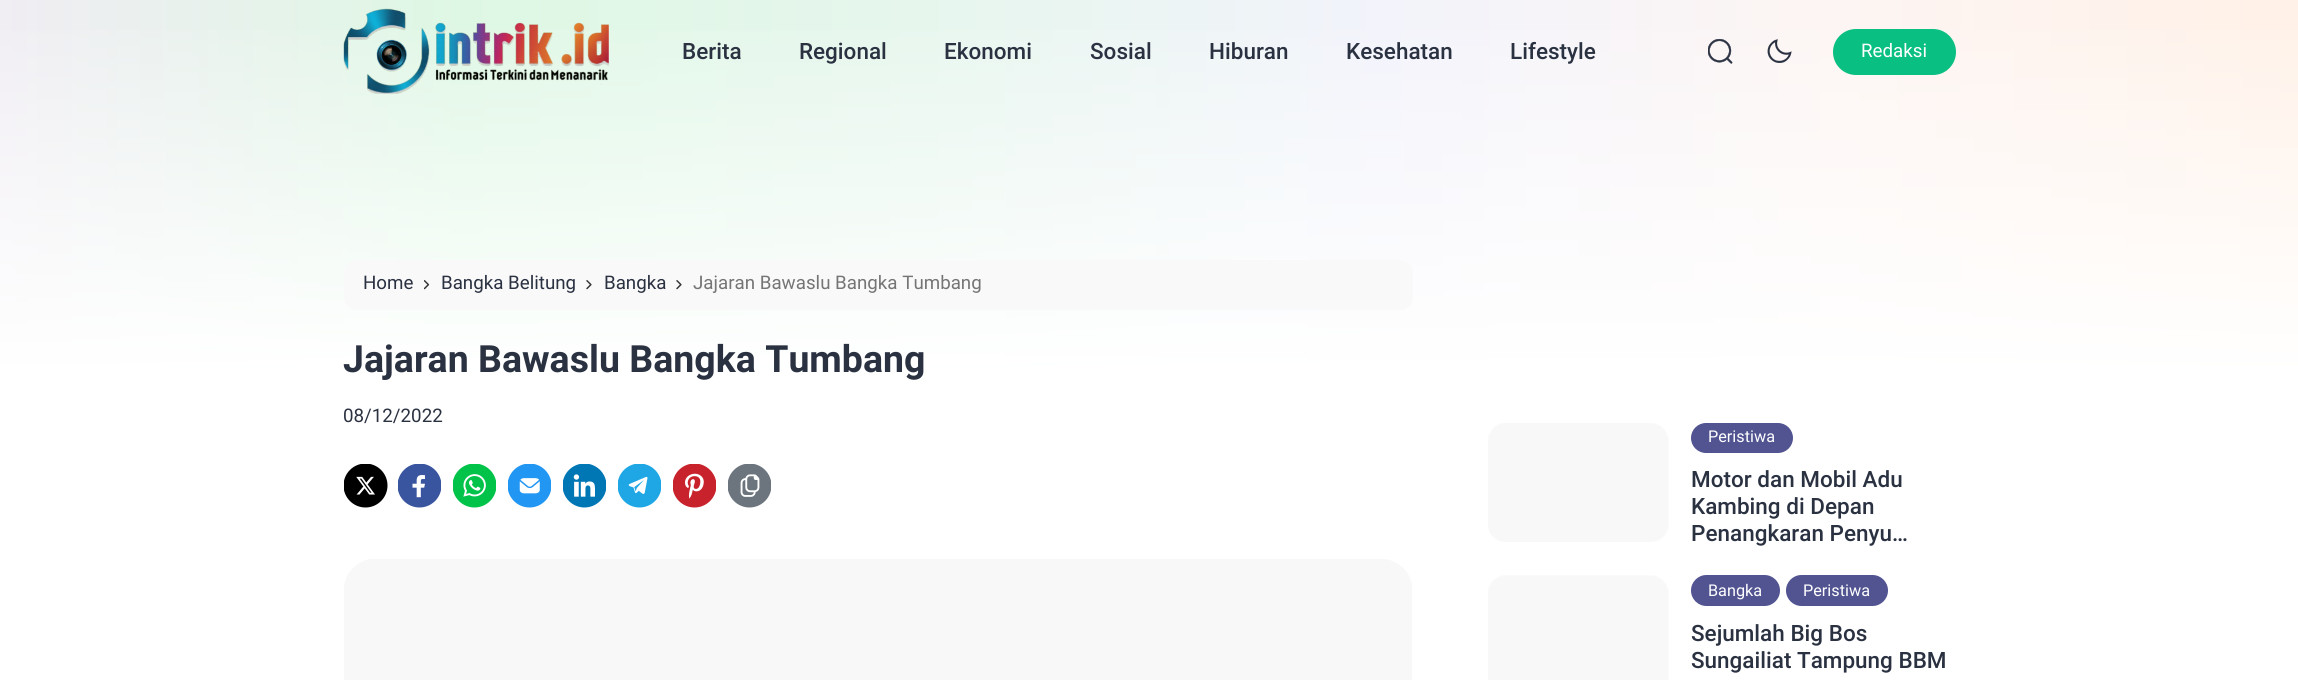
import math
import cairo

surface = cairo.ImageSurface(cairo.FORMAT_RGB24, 2298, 680)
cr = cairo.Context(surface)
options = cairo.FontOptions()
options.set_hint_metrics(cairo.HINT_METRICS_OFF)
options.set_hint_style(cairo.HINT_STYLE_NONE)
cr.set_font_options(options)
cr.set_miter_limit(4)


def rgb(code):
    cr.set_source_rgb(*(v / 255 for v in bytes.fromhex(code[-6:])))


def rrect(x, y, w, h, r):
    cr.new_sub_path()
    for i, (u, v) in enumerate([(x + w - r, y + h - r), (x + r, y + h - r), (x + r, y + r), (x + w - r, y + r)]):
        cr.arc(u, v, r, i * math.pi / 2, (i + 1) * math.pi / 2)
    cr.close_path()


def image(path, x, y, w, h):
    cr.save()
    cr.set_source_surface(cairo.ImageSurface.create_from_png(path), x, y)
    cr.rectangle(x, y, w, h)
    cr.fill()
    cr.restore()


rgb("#ffffff")
cr.paint()
gradient = cairo.LinearGradient(0, 188, 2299, 187)
gradient.add_color_stop_rgba(0, 0.941, 0.929, 0.953, 1)
gradient.add_color_stop_rgba(0.2, 0.871, 0.969, 0.894, 1)
gradient.add_color_stop_rgba(0.4, 0.902, 0.965, 0.929, 1)
gradient.add_color_stop_rgba(0.6, 0.949, 0.953, 0.984, 1)
gradient.add_color_stop_rgba(0.8, 0.992, 0.961, 0.953, 1)
gradient.add_color_stop_rgba(1, 1, 0.945, 0.906, 1)
cr.set_source(gradient)
cr.rectangle(0, 0, 2298, 373)
cr.fill()
gradient = cairo.LinearGradient(1149, 0, 1149, 375)
gradient.add_color_stop_rgba(0, 1, 1, 1, 0)
gradient.add_color_stop_rgba(0.1, 1, 1, 1, 0.1)
gradient.add_color_stop_rgba(0.2, 1, 1, 1, 0.2)
gradient.add_color_stop_rgba(0.3, 1, 1, 1, 0.3)
gradient.add_color_stop_rgba(0.4, 1, 1, 1, 0.4)
gradient.add_color_stop_rgba(0.5, 1, 1, 1, 0.5)
gradient.add_color_stop_rgba(0.6, 1, 1, 1, 0.6)
gradient.add_color_stop_rgba(0.7, 1, 1, 1, 0.7)
gradient.add_color_stop_rgba(0.8, 1, 1, 1, 0.8)
gradient.add_color_stop_rgba(0.9, 1, 1, 1, 0.9)
gradient.add_color_stop_rgba(1, 1, 1, 1, 1)
cr.set_source(gradient)
cr.rectangle(0, 30, 2298, 343)
cr.fill()
image("img/1.png", 343, 8, 266, 86)
image("img/2.png", 1708, 39, 25, 25)
image("img/3.png", 1767, 39, 25, 24)
rgb("#09bf81")
rrect(1833, 29, 123, 46, 23)
cr.fill()
rgb("#f9f9f9")
rrect(344, 260, 1069, 50, 13)
cr.fill()
image("img/4.png", 424, 280, 6, 10)
image("img/5.png", 586, 280, 6, 10)
image("img/5.png", 676, 280, 6, 10)
image("img/6.png", 344, 464, 44, 44)
image("img/7.png", 398, 464, 43, 44)
image("img/8.png", 453, 464, 43, 44)
image("img/9.png", 508, 464, 43, 44)
image("img/10.png", 563, 464, 43, 44)
image("img/11.png", 618, 464, 43, 44)
image("img/12.png", 673, 464, 43, 44)
image("img/13.png", 728, 464, 43, 44)
image("img/14.png", 344, 559, 1068, 121)
image("img/15.png", 1488, 423, 181, 119)
rgb("#515491")
rrect(1691, 423, 102, 30, 15)
cr.fill()
image("img/16.png", 1488, 575, 181, 105)
rrect(1691, 575, 89, 31, 15.5)
cr.fill()
rrect(1786, 575, 102, 31, 15.5)
cr.fill()
cr.select_font_face("Roboto Medium")
cr.set_font_size(22.5)
rgb("#2a3141")
for x, y, s in [
    (682, 59, "Berita"),
    (799, 59, "Regional"),
    (944, 59, "Ekonomi"),
    (1090, 59, "Sosial"),
    (1209, 59, "Hiburan"),
    (1346, 59, "Kesehatan"),
    (1510, 59, "Lifestyle"),
]:
    cr.move_to(x, y)
    cr.show_text(s)
cr.select_font_face("Roboto")
cr.set_font_size(18.75)
rgb("#ffffff")
cr.move_to(1861, 57)
cr.show_text("Redaksi")
rgb("#2a3141")
for x, y, s in [
    (363, 289, "Home"),
    (441, 289, "Bangka Belitung"),
    (604, 289, "Bangka"),
]:
    cr.move_to(x, y)
    cr.show_text(s)
rgb("#757575")
cr.move_to(693, 289)
cr.show_text("Jajaran Bawaslu Bangka Tumbang")
cr.select_font_face("Roboto", cairo.FONT_SLANT_NORMAL, cairo.FONT_WEIGHT_BOLD)
cr.set_font_size(37.5)
rgb("#2a3141")
cr.move_to(343, 372)
cr.show_text("Jajaran Bawaslu Bangka Tumbang")
cr.select_font_face("Roboto")
cr.set_font_size(18.75)
cr.move_to(343, 422)
cr.show_text("08/12/2022")
cr.set_font_size(16.25)
rgb("#ffffff")
cr.move_to(1708, 442)
cr.show_text("Peristiwa")
cr.select_font_face("Roboto Medium")
cr.set_font_size(22.5)
rgb("#2a3141")
for x, y, s in [
    (1691, 487, "Motor dan Mobil Adu"),
    (1691, 514, "Kambing di Depan"),
    (1691, 541, "Penangkaran Penyu…"),
]:
    cr.move_to(x, y)
    cr.show_text(s)
cr.select_font_face("Roboto")
cr.set_font_size(16.25)
rgb("#ffffff")
cr.move_to(1708, 596)
cr.show_text("Bangka")
cr.move_to(1803, 596)
cr.show_text("Peristiwa")
cr.select_font_face("Roboto Medium")
cr.set_font_size(22.5)
rgb("#2a3141")
cr.move_to(1691, 641)
cr.show_text("Sejumlah Big Bos")
cr.move_to(1691, 668)
cr.show_text("Sungailiat Tampung BBM")
surface.write_to_png("page.png")
